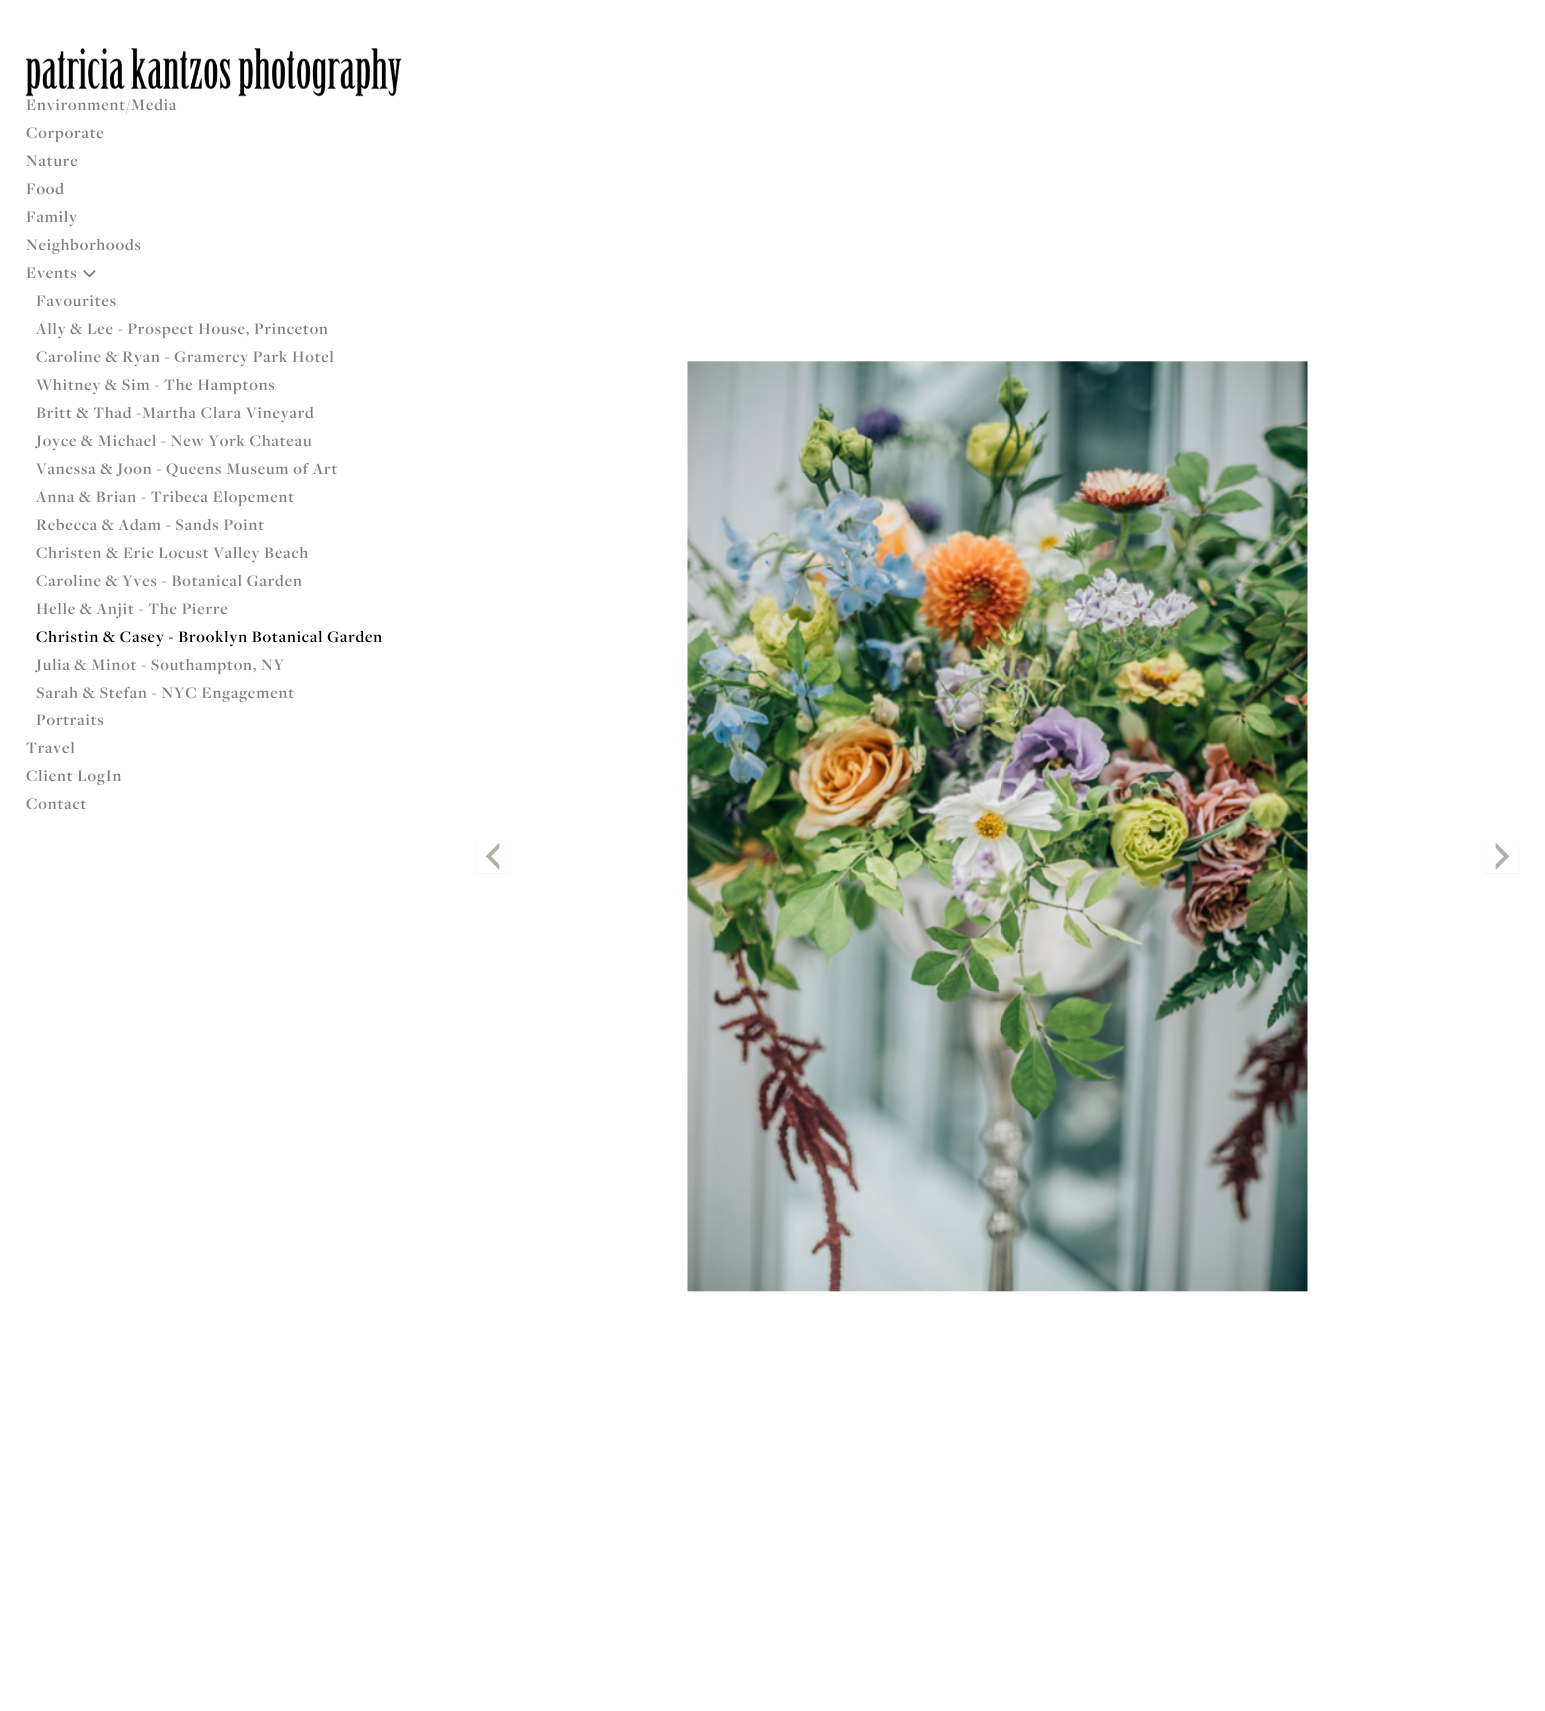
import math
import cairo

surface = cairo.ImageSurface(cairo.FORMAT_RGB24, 1545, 1711)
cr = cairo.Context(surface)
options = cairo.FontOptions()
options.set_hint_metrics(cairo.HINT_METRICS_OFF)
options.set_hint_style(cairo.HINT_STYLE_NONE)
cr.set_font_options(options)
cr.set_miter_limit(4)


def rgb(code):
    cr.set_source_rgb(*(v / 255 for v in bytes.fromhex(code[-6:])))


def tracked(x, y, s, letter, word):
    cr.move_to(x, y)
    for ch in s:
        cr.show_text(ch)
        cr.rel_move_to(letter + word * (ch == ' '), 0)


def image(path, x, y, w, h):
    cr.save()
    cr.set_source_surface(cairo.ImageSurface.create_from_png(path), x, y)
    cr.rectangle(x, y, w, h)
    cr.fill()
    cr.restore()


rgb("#ffffff")
cr.paint()
image("img/1.png", 25, 48, 377, 49)
image("img/2.png", 83, 270, 13, 8)
image("img/3.png", 475, 842, 35, 32)
image("img/4.png", 687, 361, 621, 931)
image("img/5.png", 1485, 842, 35, 32)
cr.select_font_face("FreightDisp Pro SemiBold")
cr.set_font_size(16.6)
rgb("#808080")
for x, y, s in [
    (26, 110, "Environment/Media"),
    (26, 138, "Corporate"),
    (26, 166, "Nature"),
    (26, 194, "Food"),
    (26, 222, "Family"),
    (26, 250, "Neighborhoods"),
    (26, 278, "Events"),
    (36, 306, "Favourites"),
    (36, 334, "Ally & Lee - Prospect House, Princeton"),
    (36, 362, "Caroline & Ryan - Gramercy Park Hotel"),
    (36, 390, "Whitney & Sim - The Hamptons"),
    (36, 418, "Britt & Thad -Martha Clara Vineyard"),
    (36, 446, "Joyce & Michael - New York Chateau"),
    (36, 474, "Vanessa & Joon - Queens Museum of Art"),
    (36, 502, "Anna & Brian - Tribeca Elopement"),
    (36, 530, "Rebecca & Adam - Sands Point"),
    (36, 558, "Christen & Eric Locust Valley Beach"),
    (36, 586, "Caroline & Yves - Botanical Garden"),
    (36, 614, "Helle & Anjit - The Pierre"),
]:
    tracked(x, y, s, 0.9, 0)
rgb("#000000")
tracked(36, 642, "Christin & Casey - Brooklyn Botanical Garden", 0.9, 0)
rgb("#808080")
for x, y, s in [
    (36, 670, "Julia & Minot - Southampton, NY"),
    (36, 698, "Sarah & Stefan - NYC Engagement"),
    (36, 725, "Portraits"),
    (26, 753, "Travel"),
    (26, 781, "Client LogIn"),
    (26, 809, "Contact"),
]:
    tracked(x, y, s, 0.9, 0)
surface.write_to_png("page.png")
